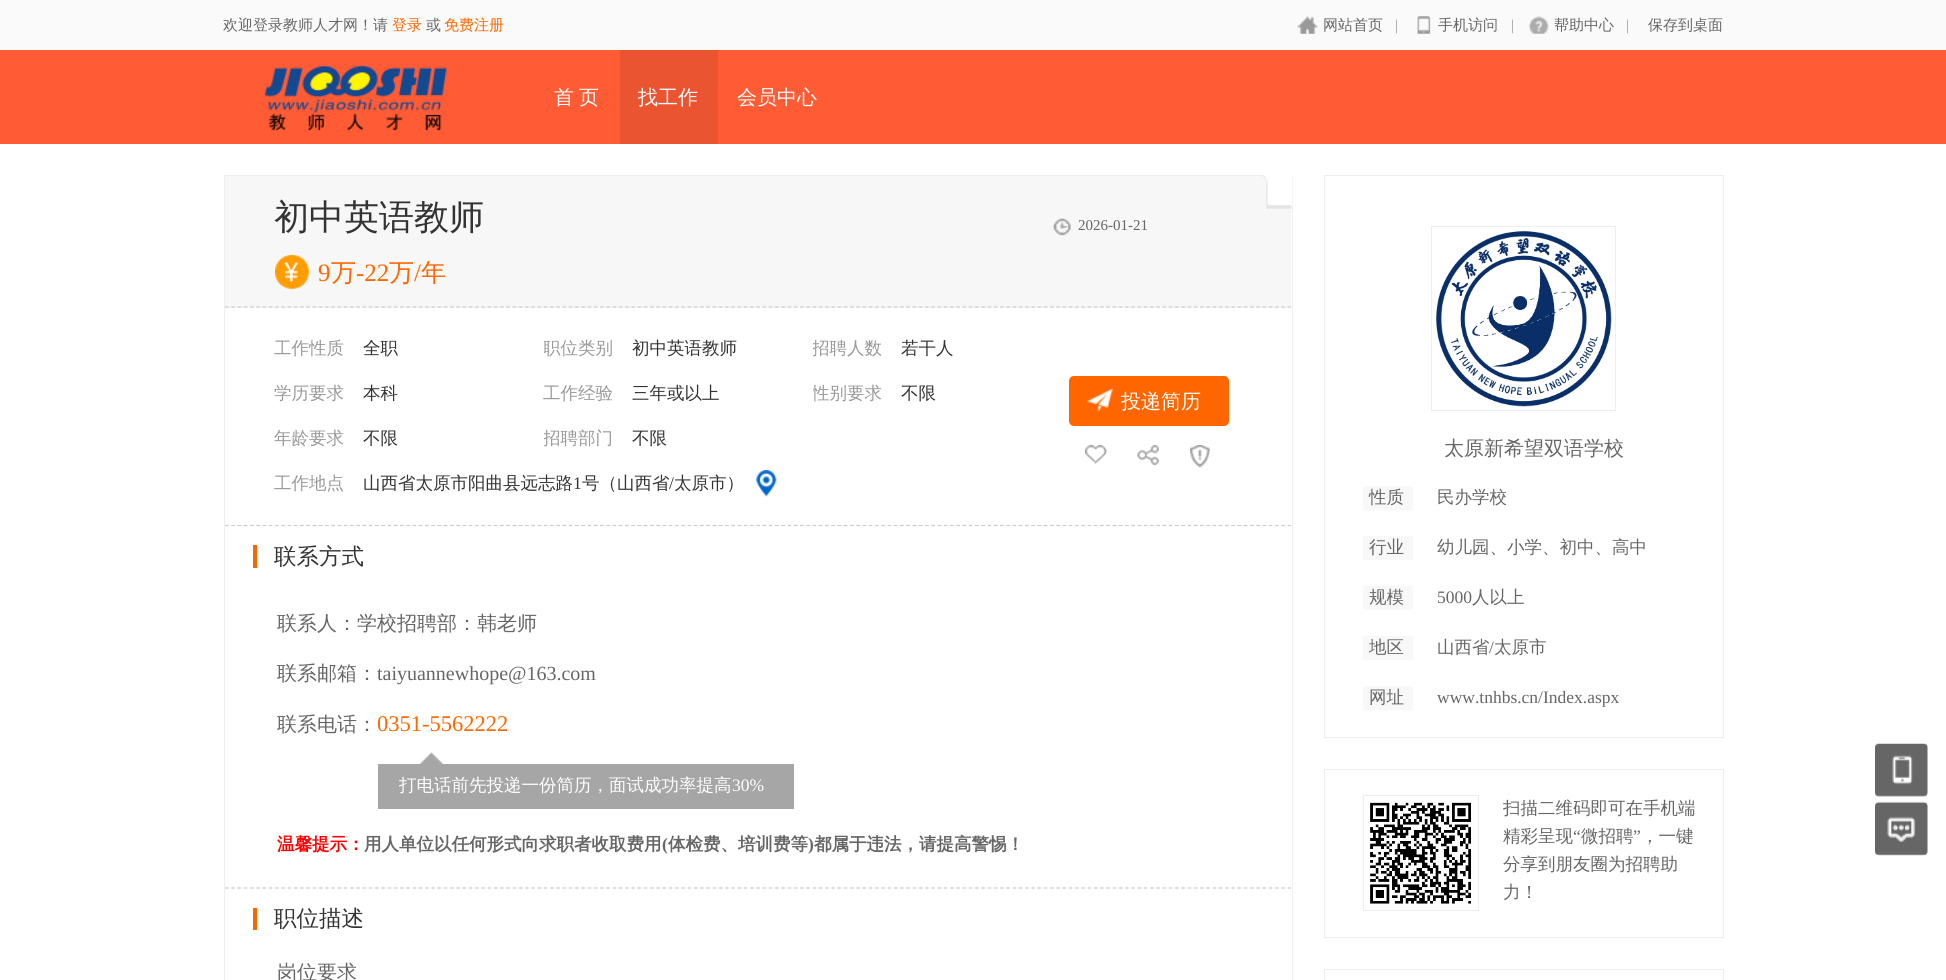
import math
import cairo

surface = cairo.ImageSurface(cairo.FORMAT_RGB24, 1946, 980)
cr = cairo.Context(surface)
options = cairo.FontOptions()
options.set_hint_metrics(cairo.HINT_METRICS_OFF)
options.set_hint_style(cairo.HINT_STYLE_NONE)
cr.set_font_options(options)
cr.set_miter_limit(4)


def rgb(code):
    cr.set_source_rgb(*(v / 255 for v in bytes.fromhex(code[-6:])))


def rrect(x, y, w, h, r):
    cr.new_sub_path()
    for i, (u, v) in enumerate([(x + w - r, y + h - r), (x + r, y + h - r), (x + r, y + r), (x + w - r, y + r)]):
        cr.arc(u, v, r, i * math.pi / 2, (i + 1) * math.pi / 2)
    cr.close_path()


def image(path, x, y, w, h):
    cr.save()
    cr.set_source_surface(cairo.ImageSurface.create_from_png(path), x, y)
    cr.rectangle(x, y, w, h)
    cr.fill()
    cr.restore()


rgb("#ffffff")
cr.paint()
rgb("#fafafa")
cr.rectangle(0, 0, 1946, 50)
cr.fill()
image("img/1.png", 1297, 16, 21, 18)
image("img/2.png", 1417, 16, 14, 18)
image("img/3.png", 1528, 16, 21, 18)
rgb("#ff5b34")
cr.rectangle(0, 50, 1946, 94)
cr.fill()
image("img/4.png", 264, 65, 183, 66)
rgb("#eb5430")
cr.rectangle(620, 50, 98, 94)
cr.fill()
cr.rectangle(224.5, 175.5, 1068, 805)
rgb("#eeeeee")
cr.set_line_width(1)
cr.stroke()
rgb("#f7f7f7")
cr.rectangle(225, 176, 1066, 132)
cr.fill()
cr.new_path()
cr.move_to(225, 307)
cr.line_to(1291, 307)
rgb("#cccccc")
cr.set_line_width(1.2)
cr.set_dash([3.75, 2.5])
cr.stroke()
image("img/5.png", 1261, 175, 32, 34)
image("img/6.png", 1053, 218, 18, 18)
image("img/7.png", 275, 254, 34, 35)
cr.new_path()
cr.move_to(225, 525.5)
cr.line_to(1291, 525.5)
cr.stroke()
rgb("#ff6600")
rrect(1069, 376, 160, 50, 5)
cr.fill()
image("img/8.png", 1087, 388, 26, 24)
image("img/9.png", 1085, 445, 22, 19)
image("img/10.png", 1137, 445, 22, 21)
image("img/11.png", 1190, 445, 21, 23)
image("img/12.png", 756, 470, 21, 27)
cr.new_path()
cr.move_to(225, 888)
cr.line_to(1291, 888)
rgb("#cccccc")
cr.stroke()
rgb("#ff6600")
cr.rectangle(253, 545, 4, 23)
cr.fill()
rgb("#a6a6a6")
cr.rectangle(378, 764, 416, 45)
cr.fill()
image("img/13.png", 419, 752, 25, 12)
rgb("#ff6600")
cr.rectangle(253, 908, 4, 22)
cr.fill()
cr.rectangle(1324.5, 175.5, 399, 562)
rgb("#eeeeee")
cr.set_line_width(1)
cr.set_dash([])
cr.stroke()
cr.rectangle(1431.5, 226.5, 184, 184)
cr.stroke()
image("img/14.png", 1436, 231, 176, 176)
for x, y, w, h, color in [
    (1363, 486, 50, 24, "#f8f8f8"),
    (1363, 536, 50, 24, "#f8f8f8"),
    (1363, 586, 50, 24, "#f8f8f8"),
    (1363, 636, 50, 24, "#f8f8f8"),
    (1363, 686, 50, 24, "#f8f8f8"),
]:
    rgb(color)
    cr.rectangle(x, y, w, h)
    cr.fill()
cr.rectangle(1324.5, 769.5, 399, 168)
rgb("#eeeeee")
cr.stroke()
cr.rectangle(1363.5, 795.5, 115, 115)
cr.stroke()
image("img/15.png", 1370, 802, 101, 102)
cr.rectangle(1324.5, 969.5, 399, 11)
cr.stroke()
image("img/16.png", 1875, 743, 53, 54)
image("img/17.png", 1875, 801, 53, 55)
cr.select_font_face("WenQuanYi Zen Hei Medium")
cr.set_font_size(15)
rgb("#666666")
cr.move_to(223, 30)
cr.show_text("欢迎登录教师人才网！请")
rgb("#ff6600")
cr.move_to(392, 30)
cr.show_text("登录")
rgb("#666666")
cr.move_to(426, 30)
cr.show_text("或")
rgb("#ff6600")
cr.move_to(444, 30)
cr.show_text("免费注册")
rgb("#666666")
cr.move_to(1323, 30)
cr.show_text("网站首页")
cr.select_font_face("Liberation Serif")
rgb("#999999")
cr.move_to(1395, 30)
cr.show_text("|")
cr.select_font_face("WenQuanYi Zen Hei Medium")
rgb("#666666")
cr.move_to(1438, 30)
cr.show_text("手机访问")
cr.select_font_face("Liberation Serif")
rgb("#999999")
cr.move_to(1511, 30)
cr.show_text("|")
cr.select_font_face("WenQuanYi Zen Hei Medium")
rgb("#666666")
cr.move_to(1554, 30)
cr.show_text("帮助中心")
cr.select_font_face("Liberation Serif")
rgb("#999999")
cr.move_to(1626, 30)
cr.show_text("|")
cr.select_font_face("WenQuanYi Zen Hei Medium")
rgb("#666666")
cr.move_to(1648, 30)
cr.show_text("保存到桌面")
cr.set_font_size(20)
rgb("#ffffff")
for x, y, s in [
    (554, 104, "首"),
    (579, 104, "页"),
    (638, 104, "找工作"),
    (737, 104, "会员中心"),
]:
    cr.move_to(x, y)
    cr.show_text(s)
cr.set_font_size(35)
rgb("#333333")
cr.move_to(274, 229)
cr.show_text("初中英语教师")
cr.select_font_face("Liberation Serif")
cr.set_font_size(15)
rgb("#666666")
cr.move_to(1078, 230)
cr.show_text("2026-01-21")
cr.set_font_size(25)
rgb("#ff6600")
cr.move_to(318, 281)
cr.show_text("9")
cr.select_font_face("WenQuanYi Zen Hei Medium")
cr.move_to(331, 281)
cr.show_text("万")
cr.select_font_face("Liberation Serif")
cr.move_to(356, 281)
cr.show_text("-22")
cr.select_font_face("WenQuanYi Zen Hei Medium")
cr.move_to(389, 281)
cr.show_text("万")
cr.select_font_face("Liberation Serif")
cr.move_to(414, 281)
cr.show_text("/")
cr.select_font_face("WenQuanYi Zen Hei Medium")
cr.move_to(421, 281)
cr.show_text("年")
cr.set_font_size(17.5)
rgb("#999999")
cr.move_to(274, 354)
cr.show_text("工作性质")
rgb("#333333")
cr.move_to(363, 354)
cr.show_text("全职")
cr.save()
cr.rectangle(544, 326, 269, 45)
cr.clip()
rgb("#999999")
cr.move_to(543, 354)
cr.show_text("职位类别")
cr.restore()
cr.move_to(632, 354)
cr.show_text("初中英语教师")
cr.save()
cr.rectangle(813, 326, 268, 45)
cr.clip()
rgb("#999999")
cr.move_to(812, 354)
cr.show_text("招聘人数")
cr.restore()
cr.move_to(901, 354)
cr.show_text("若干人")
rgb("#999999")
cr.move_to(274, 399)
cr.show_text("学历要求")
rgb("#333333")
cr.move_to(363, 399)
cr.show_text("本科")
rgb("#999999")
cr.move_to(543, 399)
cr.show_text("工作经验")
rgb("#333333")
cr.move_to(632, 399)
cr.show_text("三年或以上")
cr.save()
cr.rectangle(813, 371, 268, 45)
cr.clip()
rgb("#999999")
cr.move_to(812, 399)
cr.show_text("性别要求")
cr.restore()
cr.move_to(901, 399)
cr.show_text("不限")
cr.set_font_size(20)
rgb("#ffffff")
cr.move_to(1121, 408)
cr.show_text("投递简历")
cr.set_font_size(17.5)
rgb("#999999")
cr.move_to(274, 444)
cr.show_text("年龄要求")
rgb("#333333")
cr.move_to(363, 444)
cr.show_text("不限")
cr.save()
cr.rectangle(544, 416, 269, 45)
cr.clip()
rgb("#999999")
cr.move_to(543, 444)
cr.show_text("招聘部门")
cr.restore()
cr.move_to(632, 444)
cr.show_text("不限")
rgb("#999999")
cr.move_to(274, 489)
cr.show_text("工作地点")
rgb("#333333")
cr.move_to(363, 489)
cr.show_text("山西省太原市阳曲县远志路")
cr.select_font_face("Liberation Serif")
cr.move_to(573, 489)
cr.show_text("1")
cr.select_font_face("WenQuanYi Zen Hei Medium")
cr.move_to(582, 489)
cr.show_text("号（山西省")
cr.select_font_face("Liberation Serif")
cr.move_to(669, 489)
cr.show_text("/")
cr.select_font_face("WenQuanYi Zen Hei Medium")
cr.move_to(674, 489)
cr.show_text("太原市）")
cr.set_font_size(22.5)
cr.move_to(274, 564)
cr.show_text("联系方式")
cr.set_font_size(20)
rgb("#666666")
cr.move_to(277, 630)
cr.show_text("联系人：学校招聘部：韩老师")
cr.move_to(277, 680)
cr.show_text("联系邮箱：")
cr.select_font_face("Liberation Serif")
cr.move_to(377, 680)
cr.show_text("taiyuannewhope@163.com")
cr.select_font_face("WenQuanYi Zen Hei Medium")
cr.move_to(277, 731)
cr.show_text("联系电话：")
cr.select_font_face("Liberation Serif")
cr.set_font_size(22.5)
rgb("#ff6600")
cr.move_to(377, 731)
cr.show_text("0351-5562222")
cr.select_font_face("WenQuanYi Zen Hei Medium")
cr.set_font_size(17.5)
rgb("#ffffff")
cr.move_to(399, 791)
cr.show_text("打电话前先投递一份简历，面试成功率提高")
cr.select_font_face("Liberation Serif")
cr.move_to(732, 791)
cr.show_text("30%")
cr.select_font_face("WenQuanYi Zen Hei", cairo.FONT_SLANT_NORMAL, cairo.FONT_WEIGHT_BOLD)
rgb("#ff0000")
cr.move_to(277, 850)
cr.show_text("温馨提示：")
rgb("#666666")
cr.move_to(364, 850)
cr.show_text("用人单位以任何形式向求职者收取费用")
cr.select_font_face("Liberation Serif", cairo.FONT_SLANT_NORMAL, cairo.FONT_WEIGHT_BOLD)
cr.move_to(662, 850)
cr.show_text("(")
cr.select_font_face("WenQuanYi Zen Hei", cairo.FONT_SLANT_NORMAL, cairo.FONT_WEIGHT_BOLD)
cr.move_to(668, 850)
cr.show_text("体检费、培训费等")
cr.select_font_face("Liberation Serif", cairo.FONT_SLANT_NORMAL, cairo.FONT_WEIGHT_BOLD)
cr.move_to(808, 850)
cr.show_text(")")
cr.select_font_face("WenQuanYi Zen Hei", cairo.FONT_SLANT_NORMAL, cairo.FONT_WEIGHT_BOLD)
cr.move_to(814, 850)
cr.show_text("都属于违法，请提高警惕！")
cr.select_font_face("WenQuanYi Zen Hei Medium")
cr.set_font_size(22.5)
rgb("#333333")
cr.move_to(274, 926)
cr.show_text("职位描述")
cr.set_font_size(20)
rgb("#666666")
cr.move_to(277, 979)
cr.show_text("岗位要求")
cr.move_to(1444, 455)
cr.show_text("太原新希望双语学校")
cr.set_font_size(17.5)
for x, y, s in [
    (1369, 503, "性质"),
    (1437, 503, "民办学校"),
    (1369, 553, "行业"),
    (1437, 553, "幼儿园、小学、初中、高中"),
    (1369, 603, "规模"),
]:
    cr.move_to(x, y)
    cr.show_text(s)
cr.select_font_face("Liberation Serif")
cr.move_to(1437, 603)
cr.show_text("5000")
cr.select_font_face("WenQuanYi Zen Hei Medium")
for x, y, s in [
    (1472, 603, "人以上"),
    (1369, 653, "地区"),
    (1437, 653, "山西省"),
]:
    cr.move_to(x, y)
    cr.show_text(s)
cr.select_font_face("Liberation Serif")
cr.move_to(1489, 653)
cr.show_text("/")
cr.select_font_face("WenQuanYi Zen Hei Medium")
cr.move_to(1494, 653)
cr.show_text("太原市")
cr.move_to(1369, 703)
cr.show_text("网址")
cr.select_font_face("Liberation Serif")
cr.move_to(1437, 703)
cr.show_text("www.tnhbs.cn/Index.aspx")
cr.select_font_face("WenQuanYi Zen Hei Medium")
cr.move_to(1503, 814)
cr.show_text("扫描二维码即可在手机端")
cr.move_to(1503, 842)
cr.show_text("精彩呈现")
cr.select_font_face("Liberation Serif")
cr.move_to(1573, 842)
cr.show_text("“")
cr.select_font_face("WenQuanYi Zen Hei Medium")
cr.move_to(1581, 842)
cr.show_text("微招聘")
cr.select_font_face("Liberation Serif")
cr.move_to(1633, 842)
cr.show_text("”")
cr.select_font_face("WenQuanYi Zen Hei Medium")
for x, y, s in [
    (1641, 842, "，一键"),
    (1503, 870, "分享到朋友圈为招聘助"),
    (1503, 898, "力！"),
]:
    cr.move_to(x, y)
    cr.show_text(s)
surface.write_to_png("page.png")
